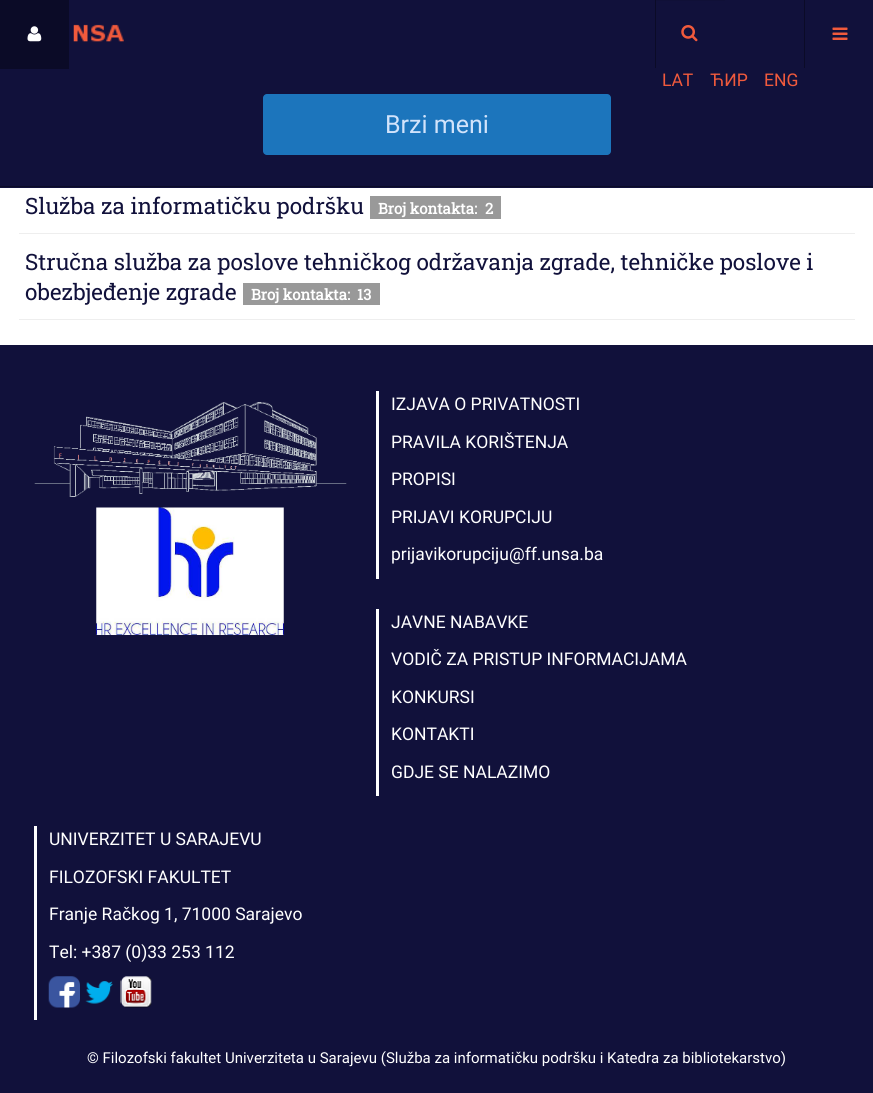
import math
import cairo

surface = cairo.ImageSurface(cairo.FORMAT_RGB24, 873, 1093)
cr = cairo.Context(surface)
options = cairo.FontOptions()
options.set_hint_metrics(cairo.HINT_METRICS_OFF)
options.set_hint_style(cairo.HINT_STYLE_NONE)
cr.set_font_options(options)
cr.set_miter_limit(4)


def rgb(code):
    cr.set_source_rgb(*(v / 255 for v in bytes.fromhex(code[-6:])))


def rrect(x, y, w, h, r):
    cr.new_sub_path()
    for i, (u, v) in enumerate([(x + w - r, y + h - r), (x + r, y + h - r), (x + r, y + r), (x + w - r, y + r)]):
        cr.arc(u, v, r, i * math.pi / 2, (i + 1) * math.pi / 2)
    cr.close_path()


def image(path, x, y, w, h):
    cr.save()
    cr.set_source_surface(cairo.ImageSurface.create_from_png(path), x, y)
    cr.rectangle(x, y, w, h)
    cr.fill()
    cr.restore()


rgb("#ffffff")
cr.paint()
for x, y, w, h, color in [
    (0, 0, 873, 188, "#11113b"),
    (0, 186, 873, 1, "#0b0b27"),
    (0, 0, 69, 69, "#0b0b27"),
]:
    rgb(color)
    cr.rectangle(x, y, w, h)
    cr.fill()
image("img/1.png", 27, 26, 15, 16)
image("img/2.png", 73, 24, 51, 18)
image("img/3.png", 832, 27, 16, 13)
for x, y, w, h, color in [
    (804, 0, 1, 68, "#0b0b27"),
    (655, 0, 1, 68, "#0b0b27"),
    (656, 0, 69, 1, "#101037"),
]:
    rgb(color)
    cr.rectangle(x, y, w, h)
    cr.fill()
image("img/4.png", 681, 25, 17, 17)
rgb("#1c75bc")
rrect(263, 94, 348, 61, 4)
cr.fill()
for x, y, w, h, color in [
    (19, 233, 836, 1, "#eeeeee"),
    (370, 196, 131, 23, "#999999"),
    (19, 319, 836, 1, "#eeeeee"),
    (243, 283, 137, 22, "#999999"),
    (0, 345, 873, 748, "#11113b"),
]:
    rgb(color)
    cr.rectangle(x, y, w, h)
    cr.fill()
image("img/5.png", 34, 402, 313, 95)
image("img/6.png", 96, 507, 188, 128)
for x, y, w, h, color in [
    (376, 391, 3, 188, "#ffffff"),
    (376, 609, 3, 187, "#ffffff"),
    (34, 826, 3, 194, "#ffffff"),
]:
    rgb(color)
    cr.rectangle(x, y, w, h)
    cr.fill()
image("img/7.png", 48, 976, 32, 32)
image("img/8.png", 85, 981, 28, 23)
image("img/9.png", 120, 976, 32, 32)
cr.select_font_face("Roboto")
cr.set_font_size(17.5)
rgb("#f15a3c")
for x, y, s in [
    (662, 86, "LAT"),
    (710, 86, "ЋИР"),
    (764, 86, "ENG"),
]:
    cr.move_to(x, y)
    cr.show_text(s)
cr.set_font_size(25)
rgb("#d1e3fb")
cr.move_to(385, 133)
cr.show_text("Brzi meni")
cr.select_font_face("Roboto Slab")
cr.set_font_size(22.5)
rgb("#11113b")
cr.move_to(25, 214)
cr.show_text("Služba za informatičku podršku")
cr.select_font_face("Roboto Slab", cairo.FONT_SLANT_NORMAL, cairo.FONT_WEIGHT_BOLD)
cr.set_font_size(15)
rgb("#ffffff")
cr.move_to(378, 214)
cr.show_text("Broj kontakta:")
cr.move_to(485, 214)
cr.show_text("2")
cr.select_font_face("Roboto Slab")
cr.set_font_size(22.5)
rgb("#11113b")
cr.move_to(25, 270)
cr.show_text("Stručna služba za poslove tehničkog održavanja zgrade, tehničke poslove i")
cr.move_to(25, 300)
cr.show_text("obezbjeđenje zgrade")
cr.select_font_face("Roboto Slab", cairo.FONT_SLANT_NORMAL, cairo.FONT_WEIGHT_BOLD)
cr.set_font_size(15)
rgb("#ffffff")
cr.move_to(251, 300)
cr.show_text("Broj kontakta:")
cr.move_to(357, 300)
cr.show_text("13")
cr.select_font_face("Roboto")
cr.set_font_size(17.5)
for x, y, s in [
    (391, 410, "IZJAVA O PRIVATNOSTI"),
    (391, 448, "PRAVILA KORIŠTENJA"),
    (391, 485, "PROPISI"),
    (391, 523, "PRIJAVI KORUPCIJU"),
    (391, 560, "prijavikorupciju@ff.unsa.ba"),
    (391, 628, "JAVNE NABAVKE"),
    (391, 665, "VODIČ ZA PRISTUP INFORMACIJAMA"),
    (391, 703, "KONKURSI"),
    (391, 740, "KONTAKTI"),
    (391, 778, "GDJE SE NALAZIMO"),
    (49, 845, "UNIVERZITET U SARAJEVU"),
    (49, 883, "FILOZOFSKI FAKULTET"),
    (49, 920, "Franje Račkog 1, 71000 Sarajevo"),
    (49, 958, "Tel: +387 (0)33 253 112"),
]:
    cr.move_to(x, y)
    cr.show_text(s)
cr.set_font_size(15)
cr.move_to(87, 1063)
cr.show_text("© Filozofski fakultet Univerziteta u Sarajevu (Služba za informatičku podršku i Katedra za bibliotekarstvo)")
surface.write_to_png("page.png")
